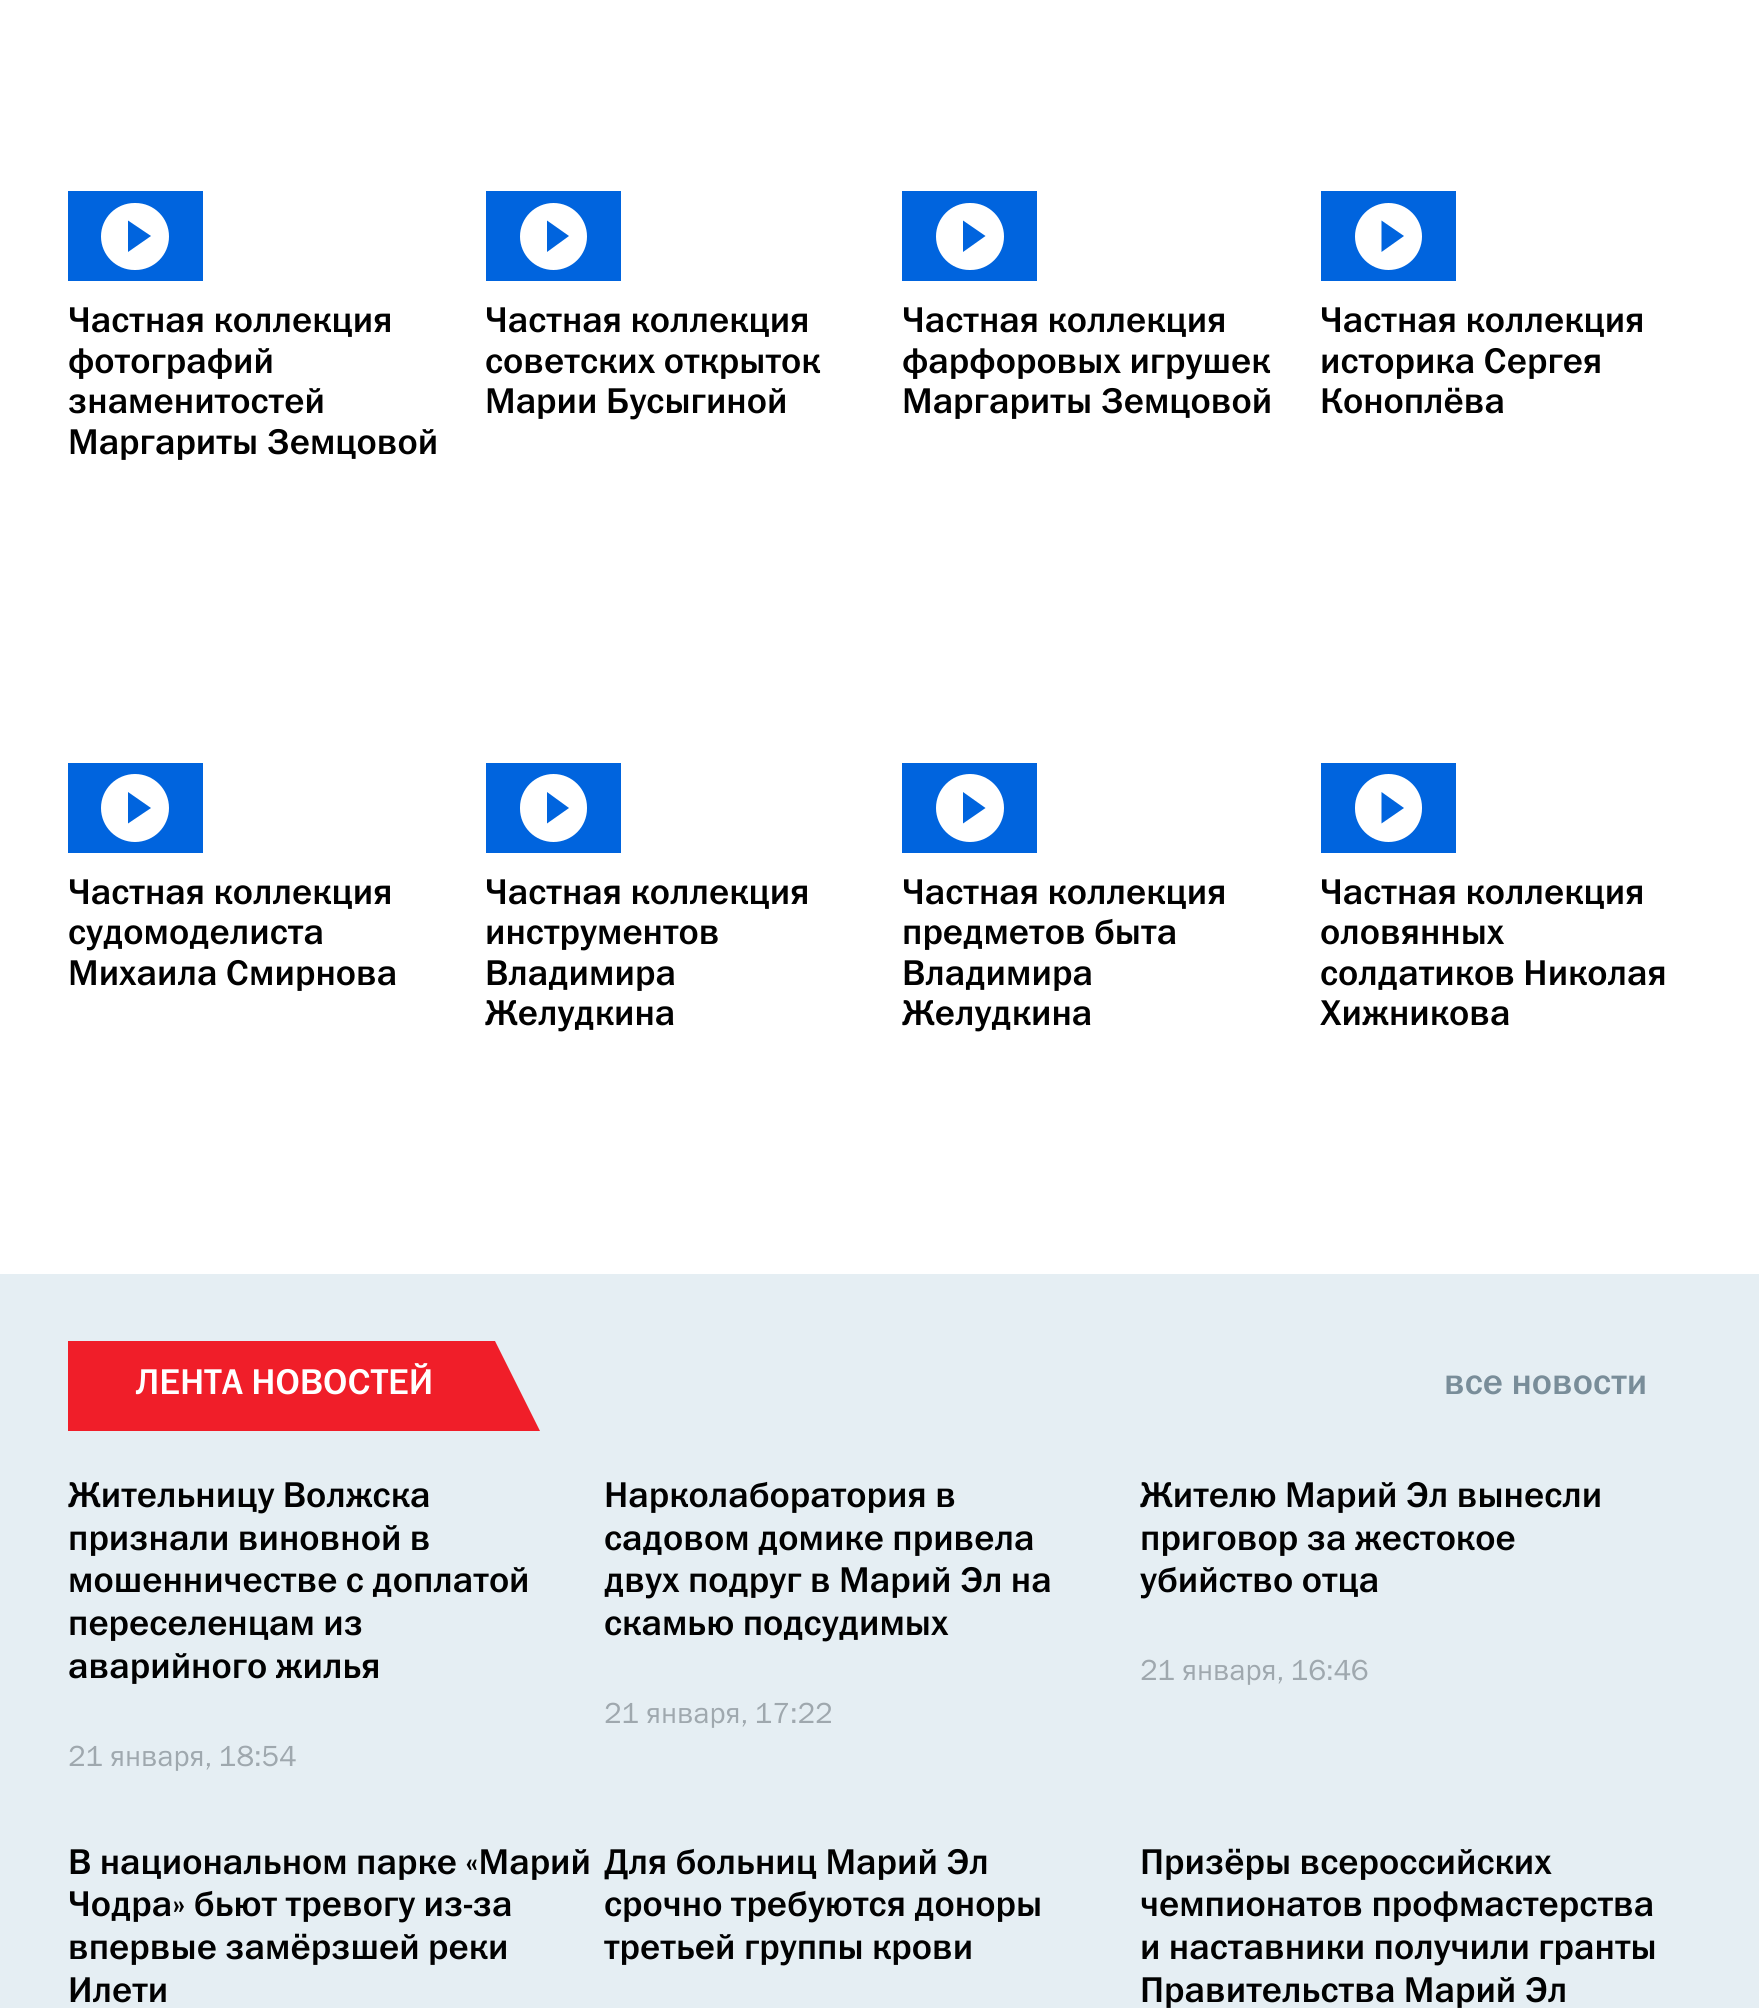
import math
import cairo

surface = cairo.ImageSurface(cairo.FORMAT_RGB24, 1759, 2008)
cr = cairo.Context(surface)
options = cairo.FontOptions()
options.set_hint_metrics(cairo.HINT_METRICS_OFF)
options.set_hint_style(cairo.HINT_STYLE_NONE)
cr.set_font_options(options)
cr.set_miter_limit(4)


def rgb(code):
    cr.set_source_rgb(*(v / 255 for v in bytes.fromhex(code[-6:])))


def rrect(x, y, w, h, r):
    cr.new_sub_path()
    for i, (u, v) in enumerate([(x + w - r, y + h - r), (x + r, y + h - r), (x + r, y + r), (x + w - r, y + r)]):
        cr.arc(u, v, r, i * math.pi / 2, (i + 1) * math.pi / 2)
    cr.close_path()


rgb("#ffffff")
cr.paint()
rgb("#0064de")
cr.rectangle(68, 191, 135, 90)
cr.fill()
rgb("#ffffff")
rrect(101, 203, 68, 67, 33.5)
cr.fill()
rgb("#0064de")
cr.new_path()
cr.move_to(128, 252)
cr.line_to(128, 220.5)
cr.line_to(151, 236)
cr.close_path()
cr.fill()
cr.rectangle(486, 191, 135, 90)
cr.fill()
rgb("#ffffff")
cr.arc(553.5, 236.5, 33.5, 0, 2 * math.pi)
cr.fill()
rgb("#0064de")
cr.new_path()
cr.move_to(547, 252)
cr.line_to(547, 220.5)
cr.line_to(569, 236)
cr.close_path()
cr.fill()
cr.rectangle(902, 191, 135, 90)
cr.fill()
rgb("#ffffff")
rrect(936, 203, 68, 67, 33.5)
cr.fill()
rgb("#0064de")
cr.new_path()
cr.move_to(963, 252)
cr.line_to(963, 220.5)
cr.line_to(985.5, 236)
cr.close_path()
cr.fill()
cr.rectangle(1321, 191, 135, 90)
cr.fill()
rgb("#ffffff")
cr.arc(1388.5, 236.5, 33.5, 0, 2 * math.pi)
cr.fill()
rgb("#0064de")
cr.new_path()
cr.move_to(1381.5, 252)
cr.line_to(1381.5, 220.5)
cr.line_to(1404, 236)
cr.close_path()
cr.fill()
cr.rectangle(68, 763, 135, 90)
cr.fill()
rgb("#ffffff")
cr.arc(135, 808, 34, 0, 2 * math.pi)
cr.fill()
rgb("#0064de")
cr.new_path()
cr.move_to(128, 823.5)
cr.line_to(128, 792)
cr.line_to(151, 808)
cr.close_path()
cr.fill()
cr.rectangle(486, 763, 135, 90)
cr.fill()
rgb("#ffffff")
rrect(520, 774, 67, 68, 33.5)
cr.fill()
rgb("#0064de")
cr.new_path()
cr.move_to(547, 823.5)
cr.line_to(547, 792)
cr.line_to(569, 808)
cr.close_path()
cr.fill()
cr.rectangle(902, 763, 135, 90)
cr.fill()
rgb("#ffffff")
cr.arc(970, 808, 34, 0, 2 * math.pi)
cr.fill()
rgb("#0064de")
cr.new_path()
cr.move_to(963, 823.5)
cr.line_to(963, 792)
cr.line_to(985.5, 808)
cr.close_path()
cr.fill()
cr.rectangle(1321, 763, 135, 90)
cr.fill()
rgb("#ffffff")
rrect(1355, 774, 67, 68, 33.5)
cr.fill()
rgb("#0064de")
cr.new_path()
cr.move_to(1381.5, 823.5)
cr.line_to(1381.5, 792)
cr.line_to(1404, 808)
cr.close_path()
cr.fill()
rgb("#e5eef3")
cr.rectangle(0, 1274, 1759, 734)
cr.fill()
rgb("#f01e29")
cr.rectangle(68, 1341, 427, 90)
cr.fill()
cr.new_path()
cr.move_to(540, 1431)
cr.line_to(495, 1431)
cr.line_to(495, 1341)
cr.close_path()
cr.fill()
cr.select_font_face("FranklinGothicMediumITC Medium")
cr.set_font_size(36)
rgb("#010101")
for x, y, s in [
    (68, 332, "Частная коллекция"),
    (68, 373, "фотографий"),
    (68, 413, "знаменитостей"),
    (68, 454, "Маргариты Земцовой"),
    (485, 332, "Частная коллекция"),
    (485, 373, "советских открыток"),
    (485, 413, "Марии Бусыгиной"),
    (902, 332, "Частная коллекция"),
    (902, 373, "фарфоровых игрушек"),
    (902, 413, "Маргариты Земцовой"),
    (1320, 332, "Частная коллекция"),
    (1320, 373, "историка Сергея"),
    (1320, 413, "Коноплёва"),
    (68, 904, "Частная коллекция"),
    (68, 944, "судомоделиста"),
    (68, 985, "Михаила Смирнова"),
    (485, 904, "Частная коллекция"),
    (485, 944, "инструментов"),
    (485, 985, "Владимира"),
    (485, 1025, "Желудкина"),
    (902, 904, "Частная коллекция"),
    (902, 944, "предметов быта"),
    (902, 985, "Владимира"),
    (902, 1025, "Желудкина"),
    (1320, 904, "Частная коллекция"),
    (1320, 944, "оловянных"),
    (1320, 985, "солдатиков Николая"),
    (1320, 1025, "Хижникова"),
]:
    cr.move_to(x, y)
    cr.show_text(s)
rgb("#ffffff")
cr.move_to(135, 1394)
cr.show_text("ЛЕНТА НОВОСТЕЙ")
rgb("#798d99")
cr.move_to(1444, 1394)
cr.show_text("все новости")
rgb("#010101")
for x, y, s in [
    (68, 1507, "Жительницу Волжска"),
    (68, 1550, "признали виновной в"),
    (68, 1592, "мошенничестве с доплатой"),
    (68, 1635, "переселенцам из"),
    (68, 1678, "аварийного жилья"),
]:
    cr.move_to(x, y)
    cr.show_text(s)
cr.select_font_face("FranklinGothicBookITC")
cr.set_font_size(29.25)
rgb("#9fa8ae")
cr.move_to(68, 1766)
cr.show_text("21 января, 18:54")
cr.select_font_face("FranklinGothicMediumITC Medium")
cr.set_font_size(36)
rgb("#010101")
for x, y, s in [
    (604, 1507, "Нарколаборатория в"),
    (604, 1550, "садовом домике привела"),
    (604, 1592, "двух подруг в Марий Эл на"),
    (604, 1635, "скамью подсудимых"),
]:
    cr.move_to(x, y)
    cr.show_text(s)
cr.select_font_face("FranklinGothicBookITC")
cr.set_font_size(29.25)
rgb("#9fa8ae")
cr.move_to(604, 1723)
cr.show_text("21 января, 17:22")
cr.select_font_face("FranklinGothicMediumITC Medium")
cr.set_font_size(36)
rgb("#010101")
for x, y, s in [
    (1140, 1507, "Жителю Марий Эл вынесли"),
    (1140, 1550, "приговор за жестокое"),
    (1140, 1592, "убийство отца"),
]:
    cr.move_to(x, y)
    cr.show_text(s)
cr.select_font_face("FranklinGothicBookITC")
cr.set_font_size(29.25)
rgb("#9fa8ae")
cr.move_to(1140, 1680)
cr.show_text("21 января, 16:46")
cr.select_font_face("FranklinGothicMediumITC Medium")
cr.set_font_size(36)
rgb("#010101")
for x, y, s in [
    (68, 1874, "В национальном парке «Марий"),
    (68, 1916, "Чодра» бьют тревогу из-за"),
    (68, 1959, "впервые замёрзшей реки"),
    (68, 2002, "Илети"),
    (604, 1874, "Для больниц Марий Эл"),
    (604, 1916, "срочно требуются доноры"),
    (604, 1959, "третьей группы крови"),
    (1140, 1874, "Призёры всероссийских"),
    (1140, 1916, "чемпионатов профмастерства"),
    (1140, 1959, "и наставники получили гранты"),
    (1140, 2002, "Правительства Марий Эл"),
]:
    cr.move_to(x, y)
    cr.show_text(s)
surface.write_to_png("page.png")
